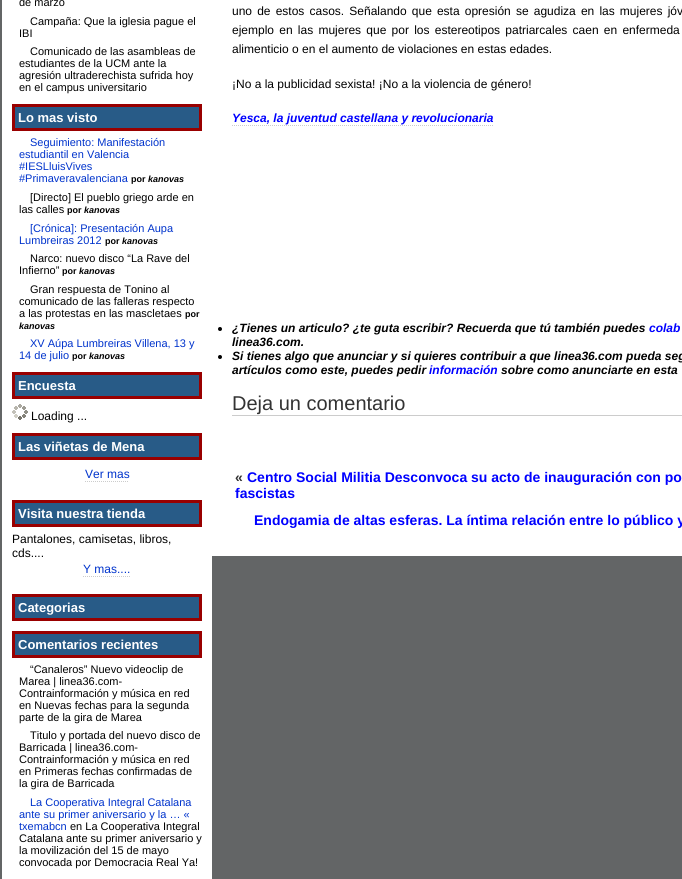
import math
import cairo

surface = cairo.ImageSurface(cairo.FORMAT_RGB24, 682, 879)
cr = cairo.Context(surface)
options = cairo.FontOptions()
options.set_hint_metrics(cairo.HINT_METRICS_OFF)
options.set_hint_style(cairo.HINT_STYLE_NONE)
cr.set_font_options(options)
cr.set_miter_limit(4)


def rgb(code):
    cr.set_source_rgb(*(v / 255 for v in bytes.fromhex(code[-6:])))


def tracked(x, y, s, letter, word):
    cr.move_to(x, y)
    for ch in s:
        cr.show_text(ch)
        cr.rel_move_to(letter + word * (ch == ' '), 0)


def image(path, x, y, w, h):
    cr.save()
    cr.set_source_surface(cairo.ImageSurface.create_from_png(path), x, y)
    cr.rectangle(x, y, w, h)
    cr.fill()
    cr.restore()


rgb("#636566")
cr.paint()
rgb("#ffffff")
cr.rectangle(2, 0, 210, 879)
cr.fill()
rgb("#285b87")
cr.rectangle(13.5, 105.5, 187, 24)
cr.fill_preserve()
rgb("#990000")
cr.set_line_width(3)
cr.stroke()
rgb("#285b87")
cr.rectangle(13.5, 373.5, 187, 24)
cr.fill_preserve()
rgb("#990000")
cr.stroke()
image("img/1.png", 12, 404, 16, 16)
rgb("#285b87")
cr.rectangle(13.5, 434.5, 187, 24)
cr.fill_preserve()
rgb("#990000")
cr.stroke()
cr.new_path()
cr.move_to(85, 481.5)
cr.line_to(129, 481.5)
rgb("#cccccc")
cr.set_line_width(1)
cr.set_dash([1, 1])
cr.stroke()
rgb("#285b87")
cr.rectangle(13.5, 501.5, 187, 24)
cr.fill_preserve()
rgb("#990000")
cr.set_line_width(3)
cr.set_dash([])
cr.stroke()
cr.new_path()
cr.move_to(83, 576.5)
cr.line_to(131, 576.5)
rgb("#cccccc")
cr.set_line_width(1)
cr.set_dash([1, 1])
cr.stroke()
rgb("#285b87")
cr.rectangle(13.5, 595.5, 187, 24)
cr.fill_preserve()
rgb("#990000")
cr.set_line_width(3)
cr.set_dash([])
cr.stroke()
rgb("#285b87")
cr.rectangle(13.5, 632.5, 187, 24)
cr.fill_preserve()
rgb("#990000")
cr.stroke()
rgb("#ffffff")
cr.rectangle(212, 0, 470, 556)
cr.fill()
cr.new_path()
cr.move_to(232, 125.5)
cr.line_to(493, 125.5)
rgb("#cccccc")
cr.set_line_width(1)
cr.set_dash([1, 1])
cr.stroke()
rgb("#000000")
cr.arc(220, 329, 2, 0, 2 * math.pi)
cr.fill()
cr.arc(220, 357, 2, 0, 2 * math.pi)
cr.fill()
rgb("#cccccc")
cr.rectangle(232, 415, 450, 1)
cr.fill()
cr.select_font_face("Liberation Sans")
cr.set_font_size(11)
rgb("#000000")
for x, y, s in [
    (19, 6, "de marzo"),
    (30, 25, "Campaña: Que la iglesia pague el"),
    (19, 37, "IBI"),
    (30, 55, "Comunicado de las asambleas de"),
    (19, 67, "estudiantes de la UCM ante la"),
    (19, 79, "agresión ultraderechista sufrida hoy"),
    (19, 91, "en el campus universitario"),
]:
    cr.move_to(x, y)
    cr.show_text(s)
cr.select_font_face("Liberation Sans", cairo.FONT_SLANT_NORMAL, cairo.FONT_WEIGHT_BOLD)
cr.set_font_size(13)
rgb("#ffffff")
cr.move_to(18, 122)
cr.show_text("Lo mas visto")
cr.select_font_face("Liberation Sans")
cr.set_font_size(11)
rgb("#0033cc")
for x, y, s in [
    (30, 146, "Seguimiento: Manifestación"),
    (19, 158, "estudiantil en Valencia"),
    (19, 170, "#IESLluisVives"),
    (19, 182, "#Primaveravalenciana"),
]:
    cr.move_to(x, y)
    cr.show_text(s)
cr.select_font_face("Liberation Sans", cairo.FONT_SLANT_NORMAL, cairo.FONT_WEIGHT_BOLD)
cr.set_font_size(9)
rgb("#000000")
cr.move_to(131, 182)
cr.show_text("por")
cr.select_font_face("Liberation Sans", cairo.FONT_SLANT_ITALIC, cairo.FONT_WEIGHT_BOLD)
cr.move_to(148, 182)
cr.show_text("kanovas")
cr.select_font_face("Liberation Sans")
cr.set_font_size(11)
cr.move_to(30, 201)
cr.show_text("[Directo] El pueblo griego arde en")
cr.move_to(19, 213)
cr.show_text("las calles")
cr.select_font_face("Liberation Sans", cairo.FONT_SLANT_NORMAL, cairo.FONT_WEIGHT_BOLD)
cr.set_font_size(9)
cr.move_to(67, 213)
cr.show_text("por")
cr.select_font_face("Liberation Sans", cairo.FONT_SLANT_ITALIC, cairo.FONT_WEIGHT_BOLD)
cr.move_to(84, 213)
cr.show_text("kanovas")
cr.select_font_face("Liberation Sans")
cr.set_font_size(11)
rgb("#0033cc")
cr.move_to(30, 232)
cr.show_text("[Crónica]: Presentación Aupa")
cr.move_to(19, 244)
cr.show_text("Lumbreiras 2012")
cr.select_font_face("Liberation Sans", cairo.FONT_SLANT_NORMAL, cairo.FONT_WEIGHT_BOLD)
cr.set_font_size(9)
rgb("#000000")
cr.move_to(105, 244)
cr.show_text("por")
cr.select_font_face("Liberation Sans", cairo.FONT_SLANT_ITALIC, cairo.FONT_WEIGHT_BOLD)
cr.move_to(122, 244)
cr.show_text("kanovas")
cr.select_font_face("Liberation Sans")
cr.set_font_size(11)
cr.move_to(30, 262)
cr.show_text("Narco: nuevo disco “La Rave del")
cr.move_to(19, 274)
cr.show_text("Infierno”")
cr.select_font_face("Liberation Sans", cairo.FONT_SLANT_NORMAL, cairo.FONT_WEIGHT_BOLD)
cr.set_font_size(9)
cr.move_to(62, 274)
cr.show_text("por")
cr.select_font_face("Liberation Sans", cairo.FONT_SLANT_ITALIC, cairo.FONT_WEIGHT_BOLD)
cr.move_to(79, 274)
cr.show_text("kanovas")
cr.select_font_face("Liberation Sans")
cr.set_font_size(11)
for x, y, s in [
    (30, 293, "Gran respuesta de Tonino al"),
    (19, 305, "comunicado de las falleras respecto"),
    (19, 317, "a las protestas en las mascletaes"),
]:
    cr.move_to(x, y)
    cr.show_text(s)
cr.select_font_face("Liberation Sans", cairo.FONT_SLANT_NORMAL, cairo.FONT_WEIGHT_BOLD)
cr.set_font_size(9)
cr.move_to(185, 317)
cr.show_text("por")
cr.select_font_face("Liberation Sans", cairo.FONT_SLANT_ITALIC, cairo.FONT_WEIGHT_BOLD)
cr.move_to(19, 329)
cr.show_text("kanovas")
cr.select_font_face("Liberation Sans")
cr.set_font_size(11)
rgb("#0033cc")
cr.move_to(30, 347)
cr.show_text("XV Aúpa Lumbreiras Villena, 13 y")
cr.move_to(19, 359)
cr.show_text("14 de julio")
cr.select_font_face("Liberation Sans", cairo.FONT_SLANT_NORMAL, cairo.FONT_WEIGHT_BOLD)
cr.set_font_size(9)
rgb("#000000")
cr.move_to(72, 359)
cr.show_text("por")
cr.select_font_face("Liberation Sans", cairo.FONT_SLANT_ITALIC, cairo.FONT_WEIGHT_BOLD)
cr.move_to(89, 359)
cr.show_text("kanovas")
cr.select_font_face("Liberation Sans", cairo.FONT_SLANT_NORMAL, cairo.FONT_WEIGHT_BOLD)
cr.set_font_size(13)
rgb("#ffffff")
cr.move_to(18, 390)
cr.show_text("Encuesta")
cr.select_font_face("Liberation Sans")
cr.set_font_size(12)
rgb("#000000")
cr.move_to(31, 420)
cr.show_text("Loading ...")
cr.select_font_face("Liberation Sans", cairo.FONT_SLANT_NORMAL, cairo.FONT_WEIGHT_BOLD)
cr.set_font_size(13)
rgb("#ffffff")
cr.move_to(18, 451)
cr.show_text("Las viñetas de Mena")
cr.select_font_face("Liberation Sans")
cr.set_font_size(12)
rgb("#0033cc")
cr.move_to(85, 478)
cr.show_text("Ver mas")
cr.select_font_face("Liberation Sans", cairo.FONT_SLANT_NORMAL, cairo.FONT_WEIGHT_BOLD)
cr.set_font_size(13)
rgb("#ffffff")
cr.move_to(18, 518)
cr.show_text("Visita nuestra tienda")
cr.select_font_face("Liberation Sans")
cr.set_font_size(12)
rgb("#000000")
cr.move_to(12, 543)
cr.show_text("Pantalones, camisetas, libros,")
cr.move_to(12, 557)
cr.show_text("cds....")
rgb("#0033cc")
cr.move_to(83, 573)
cr.show_text("Y mas....")
cr.select_font_face("Liberation Sans", cairo.FONT_SLANT_NORMAL, cairo.FONT_WEIGHT_BOLD)
cr.set_font_size(13)
rgb("#ffffff")
cr.move_to(18, 612)
cr.show_text("Categorias")
cr.move_to(18, 649)
cr.show_text("Comentarios recientes")
cr.select_font_face("Liberation Sans")
cr.set_font_size(11)
rgb("#000000")
for x, y, s in [
    (30, 673, "“Canaleros” Nuevo videoclip de"),
    (19, 685, "Marea | linea36.com-"),
    (19, 697, "Contrainformación y música en red"),
    (19, 709, "en Nuevas fechas para la segunda"),
    (19, 721, "parte de la gira de Marea"),
    (30, 739, "Titulo y portada del nuevo disco de"),
    (19, 751, "Barricada | linea36.com-"),
    (19, 763, "Contrainformación y música en red"),
    (19, 775, "en Primeras fechas confirmadas de"),
    (19, 787, "la gira de Barricada"),
]:
    cr.move_to(x, y)
    cr.show_text(s)
rgb("#0033cc")
for x, y, s in [
    (30, 806, "La Cooperativa Integral Catalana"),
    (19, 818, "ante su primer aniversario y la … «"),
    (19, 830, "txemabcn"),
]:
    cr.move_to(x, y)
    cr.show_text(s)
rgb("#000000")
for x, y, s in [
    (70, 830, "en La Cooperativa Integral"),
    (19, 842, "Catalana ante su primer aniversario y"),
    (19, 854, "la movilización del 15 de mayo"),
    (19, 866, "convocada por Democracia Real Ya!"),
]:
    cr.move_to(x, y)
    cr.show_text(s)
cr.set_font_size(12)
tracked(232, 15, "uno de estos casos. Señalando que esta opresión se agudiza en las mujeres jóv", 0, 1.8)
tracked(232, 34, "ejemplo en las mujeres que por los estereotipos patriarcales caen en enfermeda", 0, 1.9)
cr.move_to(232, 53)
cr.show_text("alimenticio o en el aumento de violaciones en estas edades.")
cr.move_to(232, 88)
cr.show_text("¡No a la publicidad sexista! ¡No a la violencia de género!")
cr.select_font_face("Liberation Sans", cairo.FONT_SLANT_ITALIC, cairo.FONT_WEIGHT_BOLD)
rgb("#0000ff")
cr.move_to(232, 122)
cr.show_text("Yesca, la juventud castellana y revolucionaria")
rgb("#000000")
cr.move_to(232, 332)
cr.show_text("¿Tienes un articulo? ¿te guta escribir? Recuerda que tú también puedes")
rgb("#0000ff")
cr.move_to(649, 332)
cr.show_text("colab")
rgb("#000000")
for x, y, s in [
    (232, 346, "linea36.com."),
    (232, 360, "Si tienes algo que anunciar y si quieres contribuir a que linea36.com pueda seg"),
    (232, 374, "artículos como este, puedes pedir"),
]:
    cr.move_to(x, y)
    cr.show_text(s)
rgb("#0000ff")
cr.move_to(429, 374)
cr.show_text("información")
rgb("#000000")
cr.move_to(501, 374)
cr.show_text("sobre como anunciarte en esta")
cr.select_font_face("Liberation Sans")
cr.set_font_size(20)
rgb("#333333")
cr.move_to(232, 410)
cr.show_text("Deja un comentario")
cr.select_font_face("Liberation Sans", cairo.FONT_SLANT_NORMAL, cairo.FONT_WEIGHT_BOLD)
cr.set_font_size(14)
cr.move_to(235, 482)
cr.show_text("«")
rgb("#0000ff")
for x, y, s in [
    (247, 482, "Centro Social Militia Desconvoca su acto de inauguración con po"),
    (235, 498, "fascistas"),
    (254, 525, "Endogamia de altas esferas. La íntima relación entre lo público y"),
]:
    cr.move_to(x, y)
    cr.show_text(s)
surface.write_to_png("page.png")
